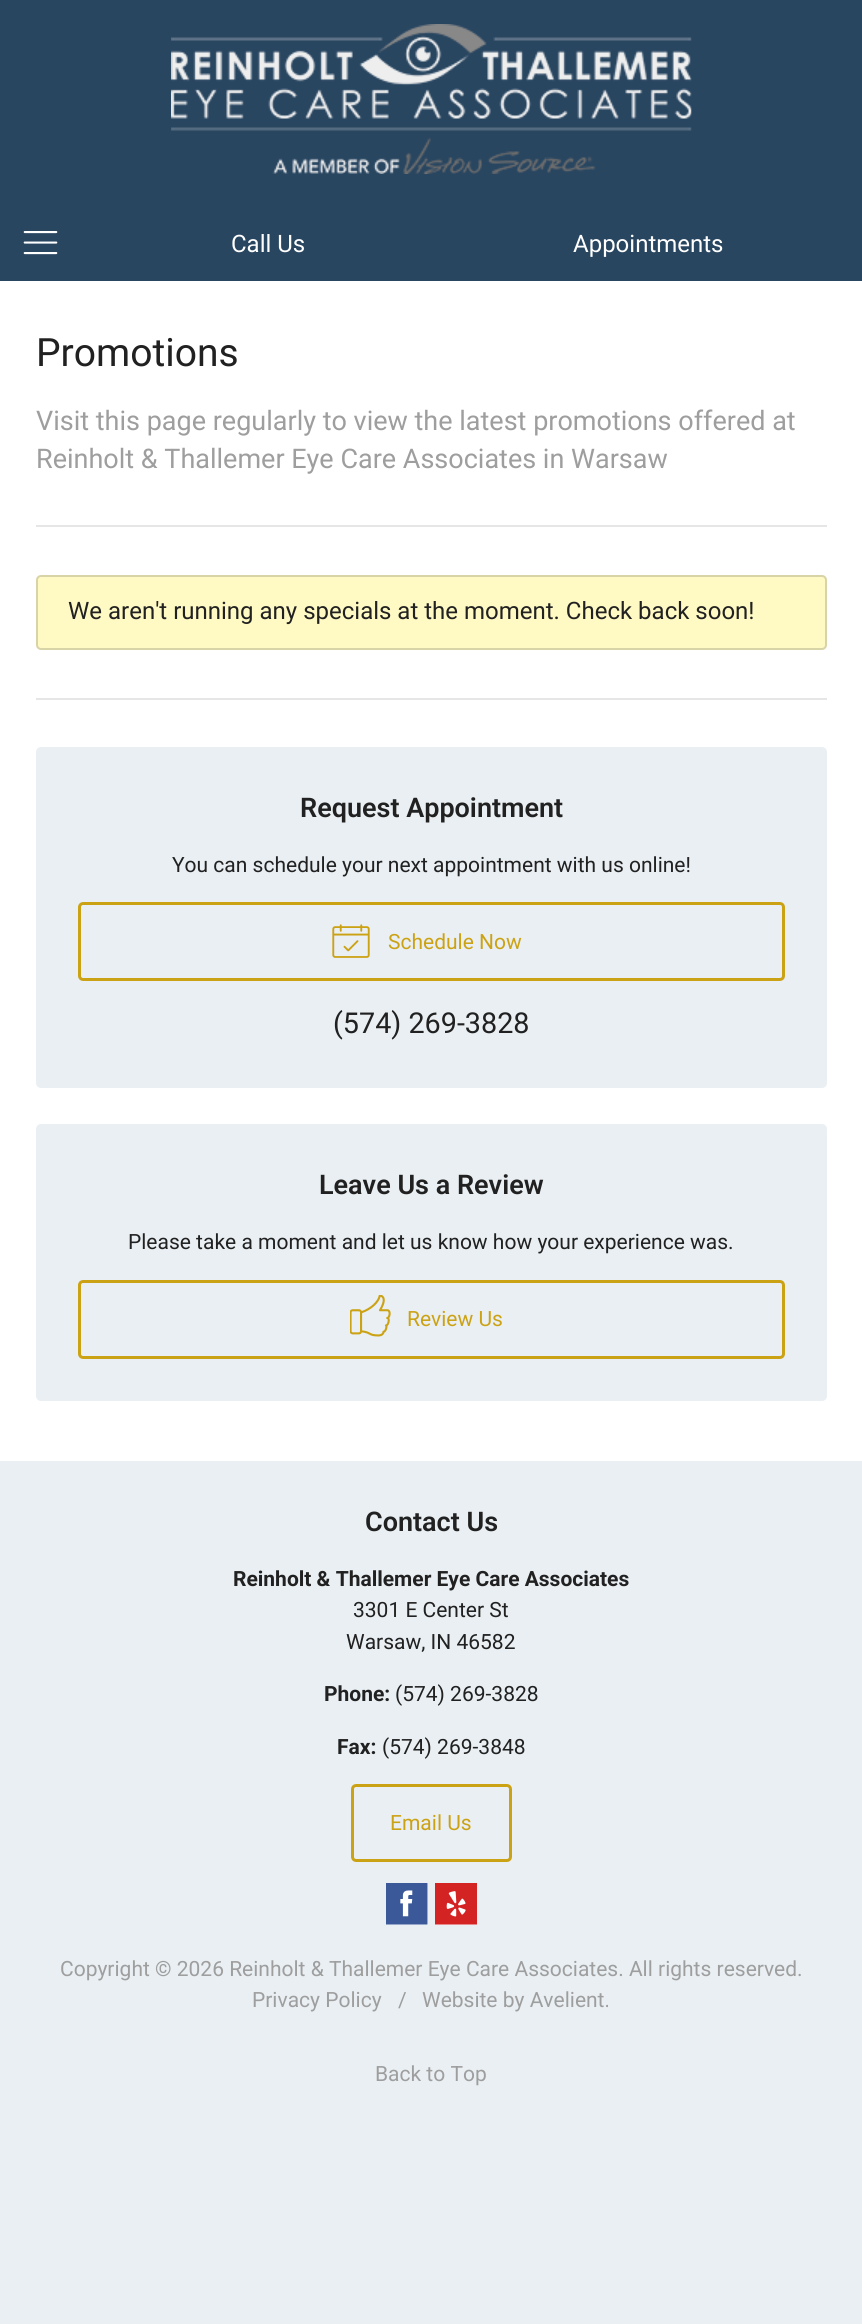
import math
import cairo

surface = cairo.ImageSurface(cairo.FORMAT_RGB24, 862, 2324)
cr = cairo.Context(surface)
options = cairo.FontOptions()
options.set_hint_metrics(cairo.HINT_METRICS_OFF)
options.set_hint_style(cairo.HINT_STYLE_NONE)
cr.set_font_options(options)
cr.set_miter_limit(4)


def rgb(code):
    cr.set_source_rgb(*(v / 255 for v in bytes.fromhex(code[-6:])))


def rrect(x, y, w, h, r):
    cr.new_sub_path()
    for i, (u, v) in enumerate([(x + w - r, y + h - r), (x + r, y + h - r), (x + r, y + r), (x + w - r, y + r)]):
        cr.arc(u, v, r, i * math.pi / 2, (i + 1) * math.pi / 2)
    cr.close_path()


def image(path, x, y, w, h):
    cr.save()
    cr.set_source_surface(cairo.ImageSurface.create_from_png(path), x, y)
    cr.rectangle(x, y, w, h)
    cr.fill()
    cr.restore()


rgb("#e9eff2")
cr.paint()
rgb("#294661")
cr.rectangle(0, 0, 862, 281)
cr.fill()
image("img/1.png", 171, 24, 521, 150)
image("img/2.png", 23, 231, 35, 24)
for x, y, w, h, color in [
    (0, 281, 862, 1180, "#ffffff"),
    (36, 525, 791, 2, "#e6e6e6"),
    (36, 698, 791, 2, "#e6e6e6"),
]:
    rgb(color)
    cr.rectangle(x, y, w, h)
    cr.fill()
rgb("#fff9c4")
rrect(36, 575, 791, 75, 5)
cr.fill()
rrect(37, 576, 789, 73, 4)
cr.set_source_rgba(0, 0, 0, 0.15)
cr.stroke()
rgb("#e9eff2")
rrect(36, 747, 791, 341, 5)
cr.fill()
rrect(79.5, 903.5, 704, 76, 3.5)
rgb("#cca215")
cr.set_line_width(3)
cr.stroke()
image("img/3.png", 332, 924, 38, 34)
rgb("#e9eff2")
rrect(36, 1124, 791, 277, 5)
cr.fill()
rrect(79.5, 1281.5, 704, 76, 3.5)
rgb("#cca215")
cr.stroke()
image("img/4.png", 350, 1295, 41, 42)
rrect(352.5, 1785.5, 158, 75, 3.5)
cr.stroke()
rgb("#ffffff")
cr.rectangle(386, 1883, 42, 42)
cr.fill()
image("img/5.png", 386, 1883, 42, 42)
cr.rectangle(435, 1891, 42, 34)
cr.fill()
image("img/6.png", 435, 1883, 42, 42)
cr.select_font_face("Roboto")
cr.set_font_size(24)
cr.move_to(231, 252)
cr.show_text("Call Us")
cr.move_to(573, 252)
cr.show_text("Appointments")
cr.set_font_size(39)
rgb("#212121")
cr.move_to(36, 366)
cr.show_text("Promotions")
cr.set_font_size(27)
rgb("#9e9e9e")
cr.move_to(36, 430)
cr.show_text("Visit this page regularly to view the latest promotions offered at")
cr.move_to(36, 468)
cr.show_text("Reinholt & Thallemer Eye Care Associates in Warsaw")
cr.set_font_size(24)
rgb("#212121")
cr.move_to(68, 619)
cr.show_text("We aren't running any specials at the moment. Check back soon!")
cr.select_font_face("Roboto SemiBold")
cr.set_font_size(27)
cr.move_to(300, 817)
cr.show_text("Request Appointment")
cr.select_font_face("Roboto")
cr.set_font_size(21)
cr.move_to(172, 872)
cr.show_text("You can schedule your next appointment with us online!")
rgb("#cca215")
cr.move_to(388, 949)
cr.show_text("Schedule Now")
cr.set_font_size(28.75)
rgb("#212121")
cr.move_to(333, 1033)
cr.show_text("(574) 269-3828")
cr.select_font_face("Roboto SemiBold")
cr.set_font_size(27)
cr.move_to(319, 1194)
cr.show_text("Leave Us a Review")
cr.select_font_face("Roboto")
cr.set_font_size(21)
cr.move_to(128, 1249)
cr.show_text("Please take a moment and let us know how your experience was.")
rgb("#cca215")
cr.move_to(407, 1326)
cr.show_text("Review Us")
cr.select_font_face("Roboto SemiBold")
cr.set_font_size(27)
rgb("#212121")
cr.move_to(365, 1531)
cr.show_text("Contact Us")
cr.select_font_face("Roboto", cairo.FONT_SLANT_NORMAL, cairo.FONT_WEIGHT_BOLD)
cr.set_font_size(21)
cr.move_to(233, 1586)
cr.show_text("Reinholt & Thallemer Eye Care Associates")
cr.select_font_face("Roboto")
cr.move_to(353, 1617)
cr.show_text("3301 E Center St")
cr.move_to(346, 1649)
cr.show_text("Warsaw, IN 46582")
cr.select_font_face("Roboto", cairo.FONT_SLANT_NORMAL, cairo.FONT_WEIGHT_BOLD)
cr.move_to(324, 1701)
cr.show_text("Phone:")
cr.select_font_face("Roboto")
cr.move_to(395, 1701)
cr.show_text("(574) 269-3828")
cr.select_font_face("Roboto", cairo.FONT_SLANT_NORMAL, cairo.FONT_WEIGHT_BOLD)
cr.move_to(337, 1754)
cr.show_text("Fax:")
cr.select_font_face("Roboto")
cr.move_to(382, 1754)
cr.show_text("(574) 269-3848")
rgb("#cca215")
cr.move_to(390, 1830)
cr.show_text("Email Us")
rgb("#9e9e9e")
for x, y, s in [
    (60, 1976, "Copyright © 2026 Reinholt & Thallemer Eye Care Associates. All rights reserved."),
    (252, 2007, "Privacy Policy"),
    (398, 2007, "/"),
    (422, 2007, "Website by Avelient."),
    (375, 2081, "Back to Top"),
]:
    cr.move_to(x, y)
    cr.show_text(s)
surface.write_to_png("page.png")
